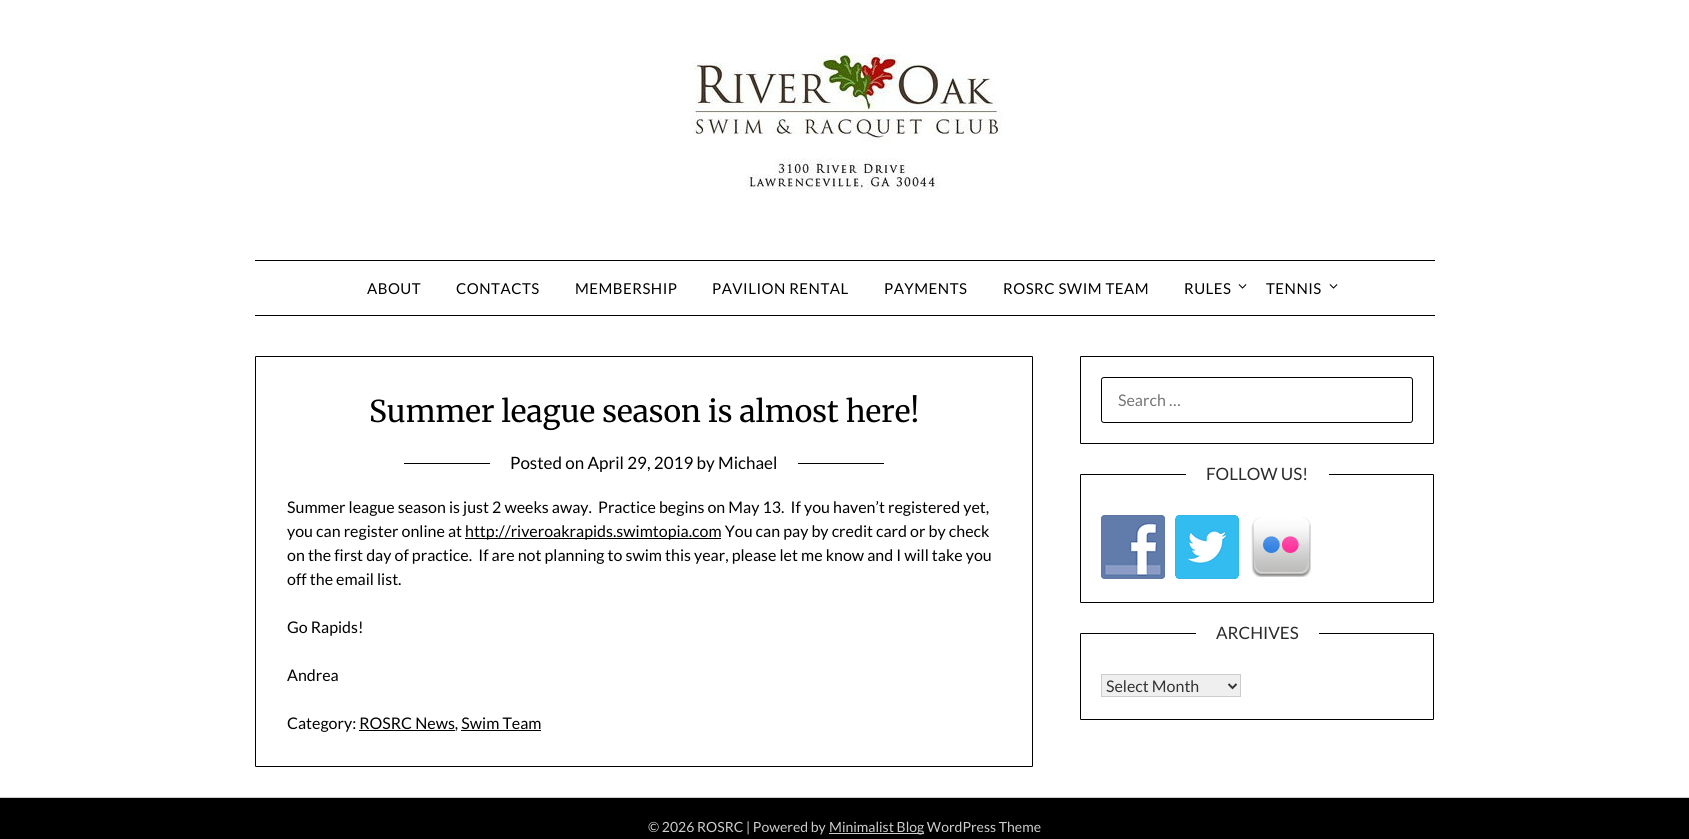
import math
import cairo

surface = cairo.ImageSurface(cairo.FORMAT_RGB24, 1689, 839)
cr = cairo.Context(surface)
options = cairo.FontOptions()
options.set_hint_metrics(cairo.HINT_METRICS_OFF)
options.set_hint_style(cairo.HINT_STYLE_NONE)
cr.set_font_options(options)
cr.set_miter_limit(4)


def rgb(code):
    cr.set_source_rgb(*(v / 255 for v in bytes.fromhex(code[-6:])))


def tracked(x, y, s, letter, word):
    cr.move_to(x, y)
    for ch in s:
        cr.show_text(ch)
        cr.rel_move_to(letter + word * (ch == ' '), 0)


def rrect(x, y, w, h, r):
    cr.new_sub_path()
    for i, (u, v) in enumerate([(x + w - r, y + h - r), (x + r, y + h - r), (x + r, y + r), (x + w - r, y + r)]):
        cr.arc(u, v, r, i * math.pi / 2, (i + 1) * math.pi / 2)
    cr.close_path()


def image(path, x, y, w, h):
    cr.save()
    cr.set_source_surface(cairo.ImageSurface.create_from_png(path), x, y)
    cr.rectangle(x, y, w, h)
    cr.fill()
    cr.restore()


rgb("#ffffff")
cr.paint()
image("img/1.png", 690, 54, 312, 136)
rgb("#000000")
cr.rectangle(255, 260, 1180, 1)
cr.fill()
cr.rectangle(255, 315, 1180, 1)
cr.fill()
image("img/2.png", 1238, 284, 9, 5)
image("img/2.png", 1329, 284, 9, 5)
rrect(255.5, 356.5, 777, 410, 0.5)
cr.set_line_width(1)
cr.stroke()
for x, y, w, h, color in [
    (404, 463, 480, 1, "#000000"),
    (490, 463, 308, 1, "#ffffff"),
    (465, 538, 256, 1, "#000000"),
    (359, 730, 96, 1, "#000000"),
    (461, 730, 80, 1, "#000000"),
]:
    rgb(color)
    cr.rectangle(x, y, w, h)
    cr.fill()
rrect(1080.5, 356.5, 353, 87, 0.5)
cr.stroke()
rrect(1101.5, 377.5, 311, 45, 2.5)
cr.stroke()
rrect(1080.5, 474.5, 353, 128, 0.5)
cr.stroke()
rgb("#ffffff")
cr.rectangle(1186, 474, 143, 1)
cr.fill()
image("img/3.png", 1101, 515, 64, 64)
image("img/4.png", 1175, 515, 64, 64)
image("img/5.png", 1251, 517, 60, 60)
rrect(1080.5, 633.5, 353, 86, 0.5)
rgb("#000000")
cr.stroke()
rgb("#ffffff")
cr.rectangle(1196, 633, 123, 1)
cr.fill()
rgb("#efefef")
cr.rectangle(1101.5, 674.5, 139, 22)
cr.fill_preserve()
rgb("#cccccc")
cr.stroke()
cr.new_path()
cr.move_to(1228.5, 684)
cr.line_to(1232.5, 688)
cr.line_to(1236.5, 684)
rgb("#333333")
cr.set_line_width(2)
cr.stroke()
for x, y, w, h, color in [
    (0, 798, 1689, 41, "#000000"),
    (0, 797, 1689, 1, "#cccccc"),
    (829, 833, 95, 1, "#cccccc"),
]:
    rgb(color)
    cr.rectangle(x, y, w, h)
    cr.fill()
cr.select_font_face("Lato")
cr.set_font_size(15)
rgb("#000000")
for x, y, s in [
    (367, 294, "ABOUT"),
    (456, 294, "CONTACTS"),
    (575, 294, "MEMBERSHIP"),
    (712, 294, "PAVILION RENTAL"),
    (884, 294, "PAYMENTS"),
    (1003, 294, "ROSRC SWIM TEAM"),
    (1184, 294, "RULES"),
    (1266, 294, "TENNIS"),
]:
    tracked(x, y, s, 0.5, 0)
cr.select_font_face("Merriweather")
cr.set_font_size(30)
cr.move_to(369, 422)
cr.show_text("Summer league season is almost here!")
cr.select_font_face("Lato")
cr.set_font_size(17)
cr.move_to(510, 469)
cr.show_text("Posted on April 29, 2019 by Michael")
cr.set_font_size(16)
for x, y, s in [
    (287, 513, "Summer league season is just 2 weeks away.  Practice begins on May 13.  If you haven’t registered yet,"),
    (287, 537, "you can register online at"),
    (465, 537, "http://riveroakrapids.swimtopia.com You can pay by credit card or by check"),
    (287, 561, "on the first day of practice.  If are not planning to swim this year, please let me know and I will take you"),
    (287, 585, "off the email list."),
    (287, 633, "Go Rapids!"),
    (287, 681, "Andrea"),
    (287, 729, "Category: ROSRC News, Swim Team"),
]:
    cr.move_to(x, y)
    cr.show_text(s)
rgb("#757575")
cr.move_to(1118, 406)
cr.show_text("Search …")
cr.set_font_size(17)
rgb("#2b2b2b")
cr.move_to(1206, 480)
cr.show_text("FOLLOW US!")
cr.move_to(1216, 639)
cr.show_text("ARCHIVES")
cr.set_font_size(16)
rgb("#333333")
cr.move_to(1106, 692)
cr.show_text("Select Month")
cr.set_font_size(14)
rgb("#cccccc")
cr.move_to(648, 832)
cr.show_text("© 2026 ROSRC | Powered by")
cr.move_to(829, 832)
cr.show_text("Minimalist Blog WordPress Theme")
surface.write_to_png("page.png")
